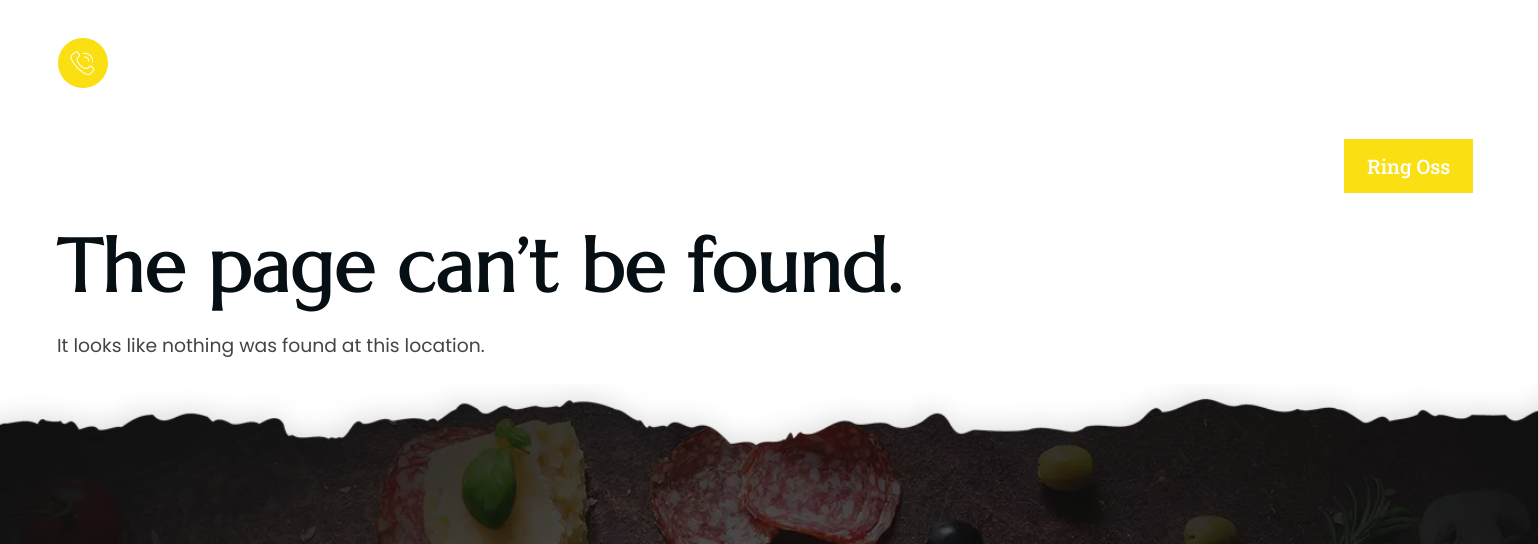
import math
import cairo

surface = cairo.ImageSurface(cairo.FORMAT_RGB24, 1538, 544)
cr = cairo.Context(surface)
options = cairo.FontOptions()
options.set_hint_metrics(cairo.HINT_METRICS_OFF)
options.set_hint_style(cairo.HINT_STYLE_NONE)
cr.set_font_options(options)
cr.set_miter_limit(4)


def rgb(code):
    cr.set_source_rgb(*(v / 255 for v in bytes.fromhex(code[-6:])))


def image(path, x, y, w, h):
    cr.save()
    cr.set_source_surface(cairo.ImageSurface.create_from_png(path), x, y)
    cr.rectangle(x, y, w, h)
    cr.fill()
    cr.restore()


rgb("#ffffff")
cr.paint()
rgb("#fadf12")
cr.arc(83, 63, 25, 0, 2 * math.pi)
cr.fill()
image("img/1.png", 70, 51, 25, 24)
cr.rectangle(1344, 139, 129, 54)
cr.fill()
image("img/3.png", 0, 398, 1538, 146)
image("img/2.png", 0, 384, 1538, 61)
cr.select_font_face("Roboto Slab Medium")
cr.set_font_size(20)
rgb("#ffffff")
cr.move_to(1367, 174)
cr.show_text("Ring Oss")
cr.select_font_face("Marcellus", cairo.FONT_SLANT_NORMAL, cairo.FONT_WEIGHT_BOLD)
cr.set_font_size(75)
rgb("#060f14")
cr.move_to(57, 292)
cr.show_text("The page can’t be found.")
cr.select_font_face("Poppins")
cr.set_font_size(18.75)
rgb("#444444")
cr.move_to(57, 352)
cr.show_text("It looks like nothing was found at this location.")
surface.write_to_png("page.png")
